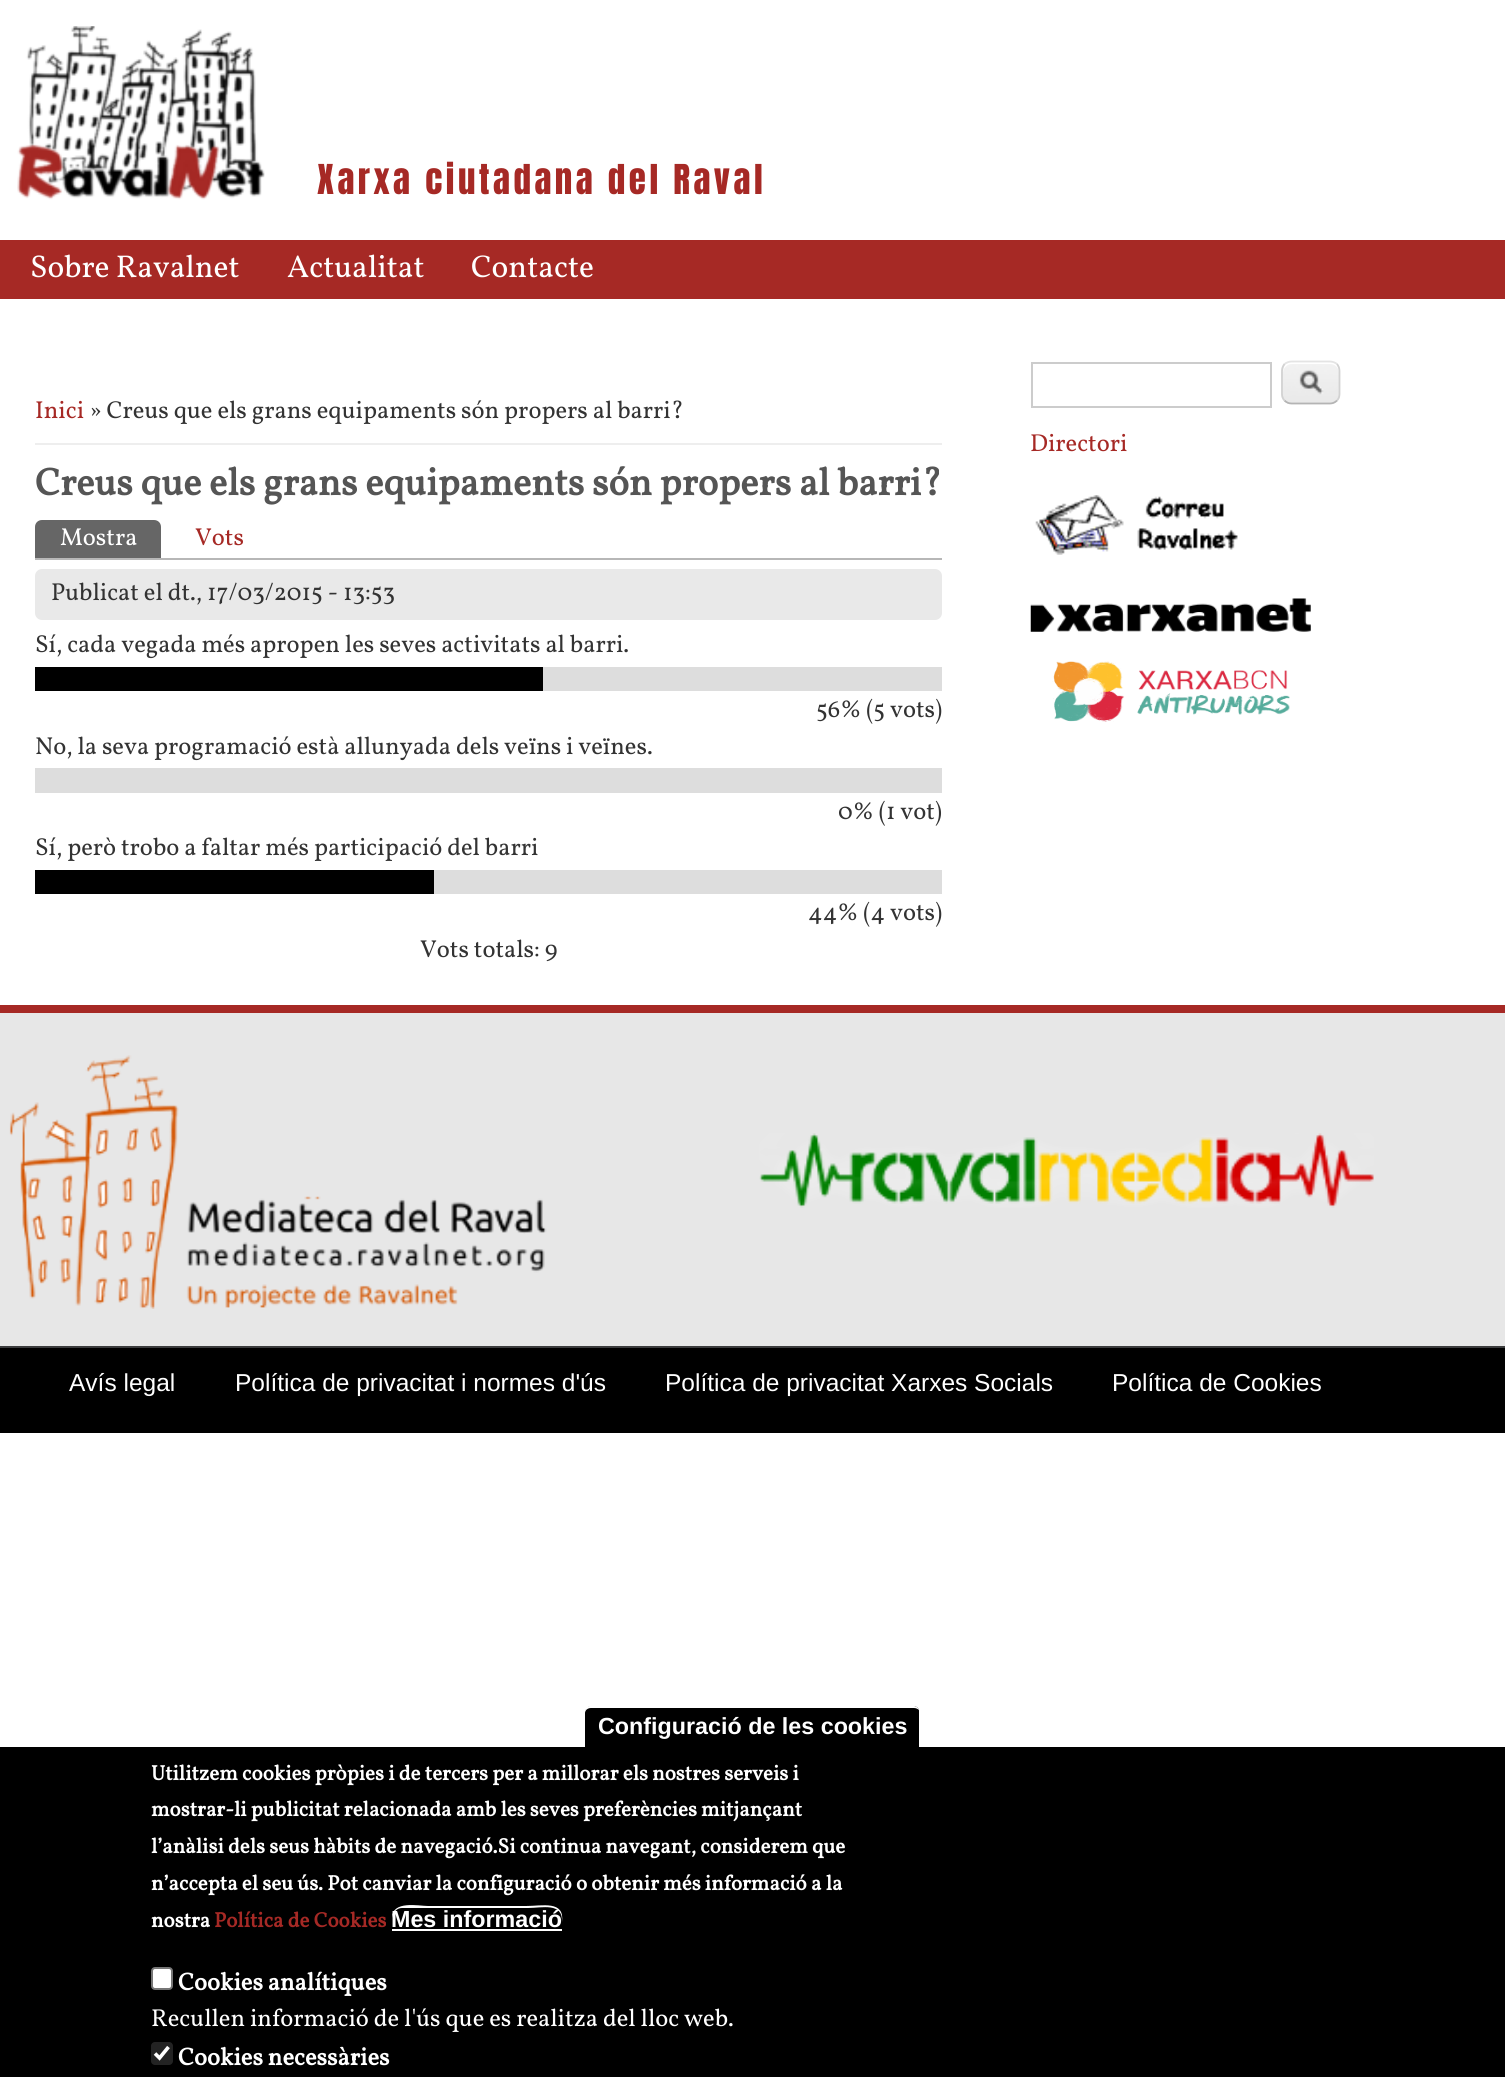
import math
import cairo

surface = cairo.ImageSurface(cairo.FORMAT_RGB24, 1505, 2077)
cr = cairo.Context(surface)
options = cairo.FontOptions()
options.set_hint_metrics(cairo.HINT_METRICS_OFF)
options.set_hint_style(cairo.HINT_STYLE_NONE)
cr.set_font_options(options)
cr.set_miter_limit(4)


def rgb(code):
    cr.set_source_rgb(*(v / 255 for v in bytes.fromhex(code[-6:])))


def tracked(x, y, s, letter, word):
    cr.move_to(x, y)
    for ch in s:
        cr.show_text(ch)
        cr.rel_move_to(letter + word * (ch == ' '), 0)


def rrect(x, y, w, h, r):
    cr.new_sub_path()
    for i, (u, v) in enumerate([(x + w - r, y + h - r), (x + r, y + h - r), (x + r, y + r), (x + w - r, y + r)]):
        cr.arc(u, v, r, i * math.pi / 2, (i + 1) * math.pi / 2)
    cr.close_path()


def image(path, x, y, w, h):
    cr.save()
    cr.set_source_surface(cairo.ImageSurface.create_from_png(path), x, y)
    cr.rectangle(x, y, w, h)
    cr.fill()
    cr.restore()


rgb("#ffffff")
cr.paint()
image("img/1.png", 17, 26, 248, 174)
for x, y, w, h, color in [
    (0, 240, 1505, 59, "#a62925"),
    (35, 443, 907, 2, "#eeeeee"),
    (35, 558, 907, 2, "#b7b7b7"),
]:
    rgb(color)
    cr.rectangle(x, y, w, h)
    cr.fill()
rgb("#666666")
cr.new_path()
cr.move_to(42, 520)
cr.line_to(154, 520)
cr.curve_to(158, 520, 161, 523, 161, 527)
cr.line_to(161, 558)
cr.line_to(35, 558)
cr.line_to(35, 527)
cr.curve_to(35, 523, 38, 520, 42, 520)
cr.close_path()
cr.fill()
rgb("#e9e9e9")
rrect(35, 569, 907, 51, 7)
cr.fill()
for x, y, w, h, color in [
    (543, 667, 399, 24, "#dddddd"),
    (35, 667, 508, 24, "#000000"),
    (35, 768, 907, 25, "#dddddd"),
    (434, 870, 508, 24, "#dddddd"),
    (35, 870, 399, 24, "#000000"),
]:
    rgb(color)
    cr.rectangle(x, y, w, h)
    cr.fill()
cr.rectangle(1032, 363, 239, 44)
rgb("#cccccc")
cr.stroke()
image("img/2.png", 1281, 362, 59, 42)
rgb("#ffffff")
cr.new_path()
cr.move_to(1292, 364)
cr.line_to(1330, 364)
cr.curve_to(1335, 364, 1339, 368, 1339, 373)
cr.curve_to(1339, 362, 1333, 362, 1324, 362)
cr.line_to(1298, 362)
cr.curve_to(1289, 362, 1283, 362, 1283, 373)
cr.curve_to(1283, 368, 1287, 364, 1292, 364)
cr.close_path()
cr.fill()
cr.new_path()
cr.move_to(1284.5, 364)
cr.curve_to(1286.5, 362.5, 1289, 361.5, 1291.5, 361.5)
cr.line_to(1330, 361.5)
cr.curve_to(1332.5, 361.5, 1335, 362.5, 1337, 364)
rgb("#e4e4e4")
cr.set_line_width(1.8)
cr.stroke()
cr.new_path()
cr.move_to(1337, 364)
cr.curve_to(1338.5, 366, 1339.5, 368.5, 1339.5, 371)
cr.line_to(1339.5, 394)
cr.curve_to(1339.5, 396.5, 1338.5, 399, 1337, 400.5)
rgb("#d2d2d2")
cr.stroke()
cr.new_path()
cr.move_to(1337, 400.5)
cr.curve_to(1335, 402.5, 1332.5, 403.5, 1330, 403.5)
cr.line_to(1291.5, 403.5)
cr.curve_to(1289, 403.5, 1286.5, 402.5, 1284.5, 400.5)
rgb("#b4b4b4")
cr.stroke()
cr.new_path()
cr.move_to(1284.5, 400.5)
cr.curve_to(1283, 399, 1282, 396.5, 1282, 394)
cr.line_to(1282, 371)
cr.curve_to(1282, 368.5, 1283, 366, 1284.5, 364)
rgb("#d2d2d2")
cr.stroke()
image("img/3.png", 1035, 495, 203, 60)
image("img/4.png", 1030, 598, 281, 34)
image("img/5.png", 1052, 661, 238, 61)
rgb("#e7e7e7")
cr.rectangle(0, 1013, 1505, 333)
cr.fill()
rgb("#a62925")
cr.rectangle(0, 1005, 1505, 8)
cr.fill()
image("img/6.png", 9, 1055, 538, 254)
image("img/7.png", 759, 1133, 615, 75)
for x, y, w, h, color in [
    (0, 1348, 1505, 85, "#000000"),
    (0, 1346, 1505, 2, "#3b3c3d"),
    (0, 1747, 1505, 330, "#000000"),
]:
    rgb(color)
    cr.rectangle(x, y, w, h)
    cr.fill()
cr.new_path()
cr.move_to(590, 1706)
cr.line_to(914, 1706)
cr.curve_to(917, 1706, 919, 1708, 919, 1711)
cr.line_to(919, 1747)
cr.line_to(585, 1747)
cr.line_to(585, 1711)
cr.curve_to(585, 1708, 587, 1706, 590, 1706)
cr.close_path()
cr.fill()
rgb("#ffffff")
cr.new_path()
cr.move_to(591, 1708)
cr.line_to(914, 1708)
cr.curve_to(916, 1708, 918, 1709, 919, 1710)
cr.curve_to(919, 1708, 916, 1706, 914, 1706)
cr.line_to(590, 1706)
cr.curve_to(587, 1706, 585, 1708, 585, 1711)
cr.line_to(585, 1713)
cr.curve_to(585, 1710, 588, 1708, 591, 1708)
cr.close_path()
cr.fill()
cr.set_fill_rule(cairo.FILL_RULE_EVEN_ODD)
cr.new_path()
cr.move_to(591, 1703)
cr.line_to(914, 1703)
cr.curve_to(919, 1703, 923, 1707, 923, 1712)
cr.line_to(923, 1746)
cr.line_to(582, 1746)
cr.line_to(582, 1712)
cr.curve_to(582, 1707, 586, 1703, 591, 1703)
cr.close_path()
cr.move_to(591, 1706)
cr.line_to(914, 1706)
cr.curve_to(917, 1706, 920, 1709, 920, 1712)
cr.line_to(920, 1746)
cr.line_to(585, 1746)
cr.line_to(585, 1712)
cr.curve_to(585, 1709, 588, 1706, 591, 1706)
cr.close_path()
cr.fill()
cr.set_fill_rule(cairo.FILL_RULE_WINDING)
cr.new_path()
cr.move_to(402, 1908)
cr.line_to(528, 1908)
cr.curve_to(542, 1908, 563, 1902, 562, 1922)
cr.curve_to(565, 1900, 542, 1906, 526, 1906)
cr.line_to(428, 1906)
cr.curve_to(419, 1906, 392, 1900, 392, 1918)
cr.curve_to(393, 1912, 397, 1908, 402, 1908)
cr.close_path()
cr.fill()
cr.rectangle(392, 1929, 170, 2)
cr.fill()
rrect(152, 1968, 20, 21, 3)
cr.fill_preserve()
rgb("#767676")
cr.set_line_width(2)
cr.stroke()
rgb("#232323")
rrect(151, 2042, 22, 23, 4)
cr.fill()
cr.new_path()
cr.move_to(155, 2053.5)
cr.line_to(159.5, 2058)
cr.line_to(168.5, 2047)
rgb("#ffffff")
cr.set_line_width(3.6)
cr.stroke()
cr.select_font_face("Anton")
cr.set_font_size(35)
rgb("#a62925")
tracked(317, 194, "Xarxa ciutadana del Raval", 3.5, 0)
cr.select_font_face("Vollkorn")
cr.set_font_size(31.5)
rgb("#ffffff")
for x, y, s in [
    (30, 277, "Sobre Ravalnet"),
    (287, 277, "Actualitat"),
    (471, 277, "Contacte"),
]:
    cr.move_to(x, y)
    cr.show_text(s)
cr.set_font_size(24.5)
rgb("#a62925")
cr.move_to(35, 418)
cr.show_text("Inici")
rgb("#333333")
cr.move_to(89, 418)
cr.show_text("» Creus que els grans equipaments són propers al barri?")
cr.select_font_face("Vollkorn", cairo.FONT_SLANT_NORMAL, cairo.FONT_WEIGHT_BOLD)
cr.set_font_size(38.5)
rgb("#555555")
cr.move_to(35, 495)
cr.show_text("Creus que els grans equipaments són propers al barri?")
cr.select_font_face("Vollkorn")
cr.set_font_size(24.5)
rgb("#ffffff")
cr.move_to(60, 545)
cr.show_text("Mostra")
rgb("#a62925")
cr.move_to(195, 545)
cr.show_text("Vots")
rgb("#333333")
for x, y, s in [
    (51, 600, "Publicat el dt., 17/03/2015 - 13:53"),
    (35, 652, "Sí, cada vegada més apropen les seves activitats al barri."),
    (816, 717, "56% (5 vots)"),
    (35, 754, "No, la seva programació està allunyada dels veïns i veïnes."),
    (838, 819, "0% (1 vot)"),
    (35, 855, "Sí, però trobo a faltar més participació del barri"),
    (808, 920, "44% (4 vots)"),
    (420, 957, "Vots totals: 9"),
]:
    cr.move_to(x, y)
    cr.show_text(s)
rgb("#a62925")
cr.move_to(1030, 451)
cr.show_text("Directori")
cr.select_font_face("Liberation Sans")
rgb("#ffffff")
for x, y, s in [
    (69, 1391, "Avís legal"),
    (235, 1391, "Política de privacitat i normes d'ús"),
    (665, 1391, "Política de privacitat Xarxes Socials"),
    (1112, 1391, "Política de Cookies"),
]:
    cr.move_to(x, y)
    cr.show_text(s)
cr.select_font_face("Liberation Sans", cairo.FONT_SLANT_NORMAL, cairo.FONT_WEIGHT_BOLD)
cr.set_font_size(23.3)
cr.move_to(598, 1734)
cr.show_text("Configuració de les cookies")
cr.select_font_face("Vollkorn", cairo.FONT_SLANT_NORMAL, cairo.FONT_WEIGHT_BOLD)
cr.set_font_size(21)
for x, y, s in [
    (151, 1780, "Utilitzem cookies pròpies i de tercers per a millorar els nostres serveis i"),
    (151, 1816, "mostrar-li publicitat relacionada amb les seves preferències mitjançant"),
    (151, 1853, "l’anàlisi dels seus hàbits de navegació.Si continua navegant, considerem que"),
    (151, 1890, "n’accepta el seu ús. Pot canviar la configuració o obtenir més informació a la"),
    (151, 1927, "nostra"),
]:
    cr.move_to(x, y)
    cr.show_text(s)
rgb("#a62925")
cr.move_to(214, 1927)
cr.show_text("Política de Cookies")
cr.select_font_face("Liberation Sans", cairo.FONT_SLANT_NORMAL, cairo.FONT_WEIGHT_BOLD)
cr.set_font_size(23.3)
rgb("#ffffff")
cr.move_to(391, 1927)
cr.show_text("Mes informació")
cr.select_font_face("Vollkorn", cairo.FONT_SLANT_NORMAL, cairo.FONT_WEIGHT_BOLD)
cr.set_font_size(24.5)
cr.move_to(178, 1990)
cr.show_text("Cookies analítiques")
cr.select_font_face("Vollkorn")
cr.move_to(151, 2026)
cr.show_text("Recullen informació de l'ús que es realitza del lloc web.")
cr.select_font_face("Vollkorn", cairo.FONT_SLANT_NORMAL, cairo.FONT_WEIGHT_BOLD)
cr.move_to(178, 2065)
cr.show_text("Cookies necessàries")
surface.write_to_png("page.png")
